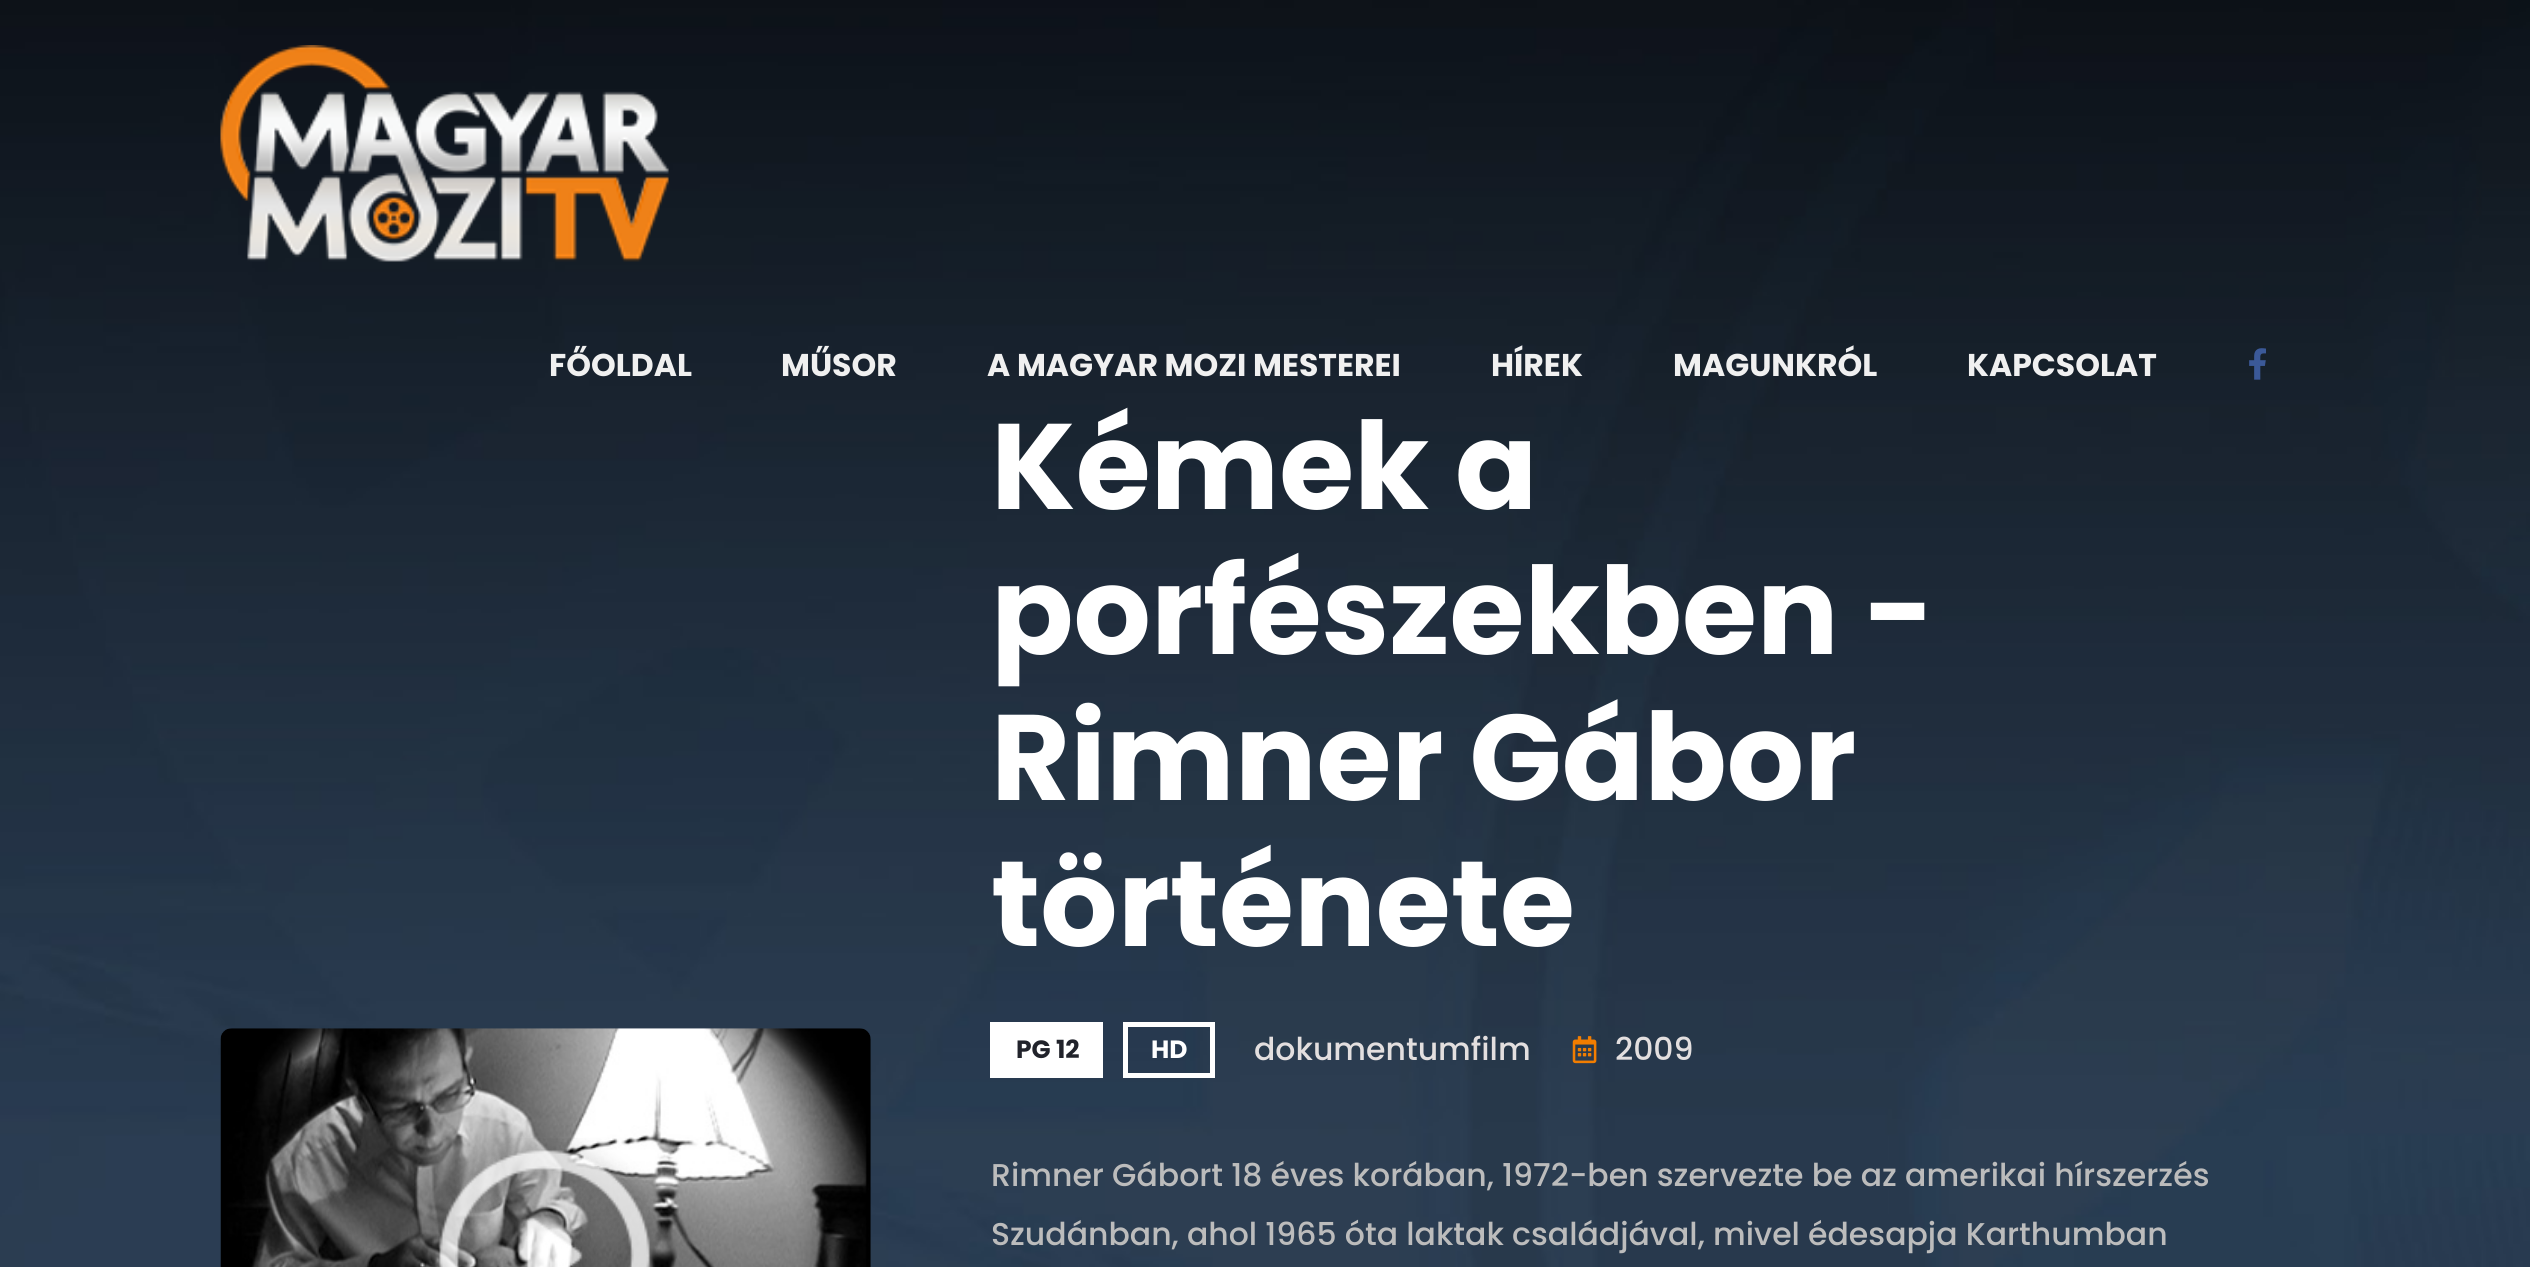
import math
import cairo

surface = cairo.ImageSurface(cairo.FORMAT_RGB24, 2530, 1267)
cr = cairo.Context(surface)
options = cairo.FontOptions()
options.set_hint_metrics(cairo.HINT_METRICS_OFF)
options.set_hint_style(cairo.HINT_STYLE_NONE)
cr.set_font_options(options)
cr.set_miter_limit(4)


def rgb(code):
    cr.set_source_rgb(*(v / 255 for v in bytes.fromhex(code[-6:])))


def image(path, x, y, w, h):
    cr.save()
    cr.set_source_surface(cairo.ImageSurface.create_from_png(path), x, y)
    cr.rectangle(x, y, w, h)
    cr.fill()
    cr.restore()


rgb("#ffffff")
cr.paint()
image("img/3.png", 0, 0, 2530, 1267)
image("img/1.png", 220, 45, 449, 217)
image("img/2.png", 2249, 348, 17, 32)
image("img/4.png", 220, 1028, 651, 239)
image("img/5.png", 430, 1138, 231, 129)
rgb("#ffffff")
cr.rectangle(990, 1022, 113, 56)
cr.fill()
cr.rectangle(1125.5, 1024.5, 87, 51)
cr.set_line_width(5)
cr.stroke()
image("img/6.png", 1572, 1036, 25, 28)
cr.select_font_face("Poppins", cairo.FONT_SLANT_NORMAL, cairo.FONT_WEIGHT_BOLD)
cr.set_font_size(31.5)
rgb("#f0f0f0")
for x, y, s in [
    (549, 376, "FŐOLDAL"),
    (781, 376, "MŰSOR"),
    (987, 376, "A MAGYAR MOZI MESTEREI"),
    (1491, 376, "HÍREK"),
    (1673, 376, "MAGUNKRÓL"),
    (1967, 376, "KAPCSOLAT"),
]:
    cr.move_to(x, y)
    cr.show_text(s)
cr.set_font_size(121.5)
rgb("#ffffff")
for x, y, s in [
    (991, 509, "Kémek a"),
    (991, 654, "porfészekben -"),
    (991, 800, "Rimner Gábor"),
    (991, 946, "története"),
]:
    cr.move_to(x, y)
    cr.show_text(s)
cr.set_font_size(25)
rgb("#21232b")
cr.move_to(1016, 1058)
cr.show_text("PG 12")
rgb("#ffffff")
cr.move_to(1151, 1058)
cr.show_text("HD")
cr.select_font_face("Poppins Medium")
cr.set_font_size(31.5)
rgb("#e3dfdf")
cr.move_to(1254, 1060)
cr.show_text("dokumentumfilm")
cr.move_to(1615, 1060)
cr.show_text("2009")
rgb("#bcbcbc")
cr.move_to(991, 1186)
cr.show_text("Rimner Gábort 18 éves korában, 1972-ben szervezte be az amerikai hírszerzés")
cr.move_to(991, 1245)
cr.show_text("Szudánban, ahol 1965 óta laktak családjával, mivel édesapja Karthumban")
surface.write_to_png("page.png")
